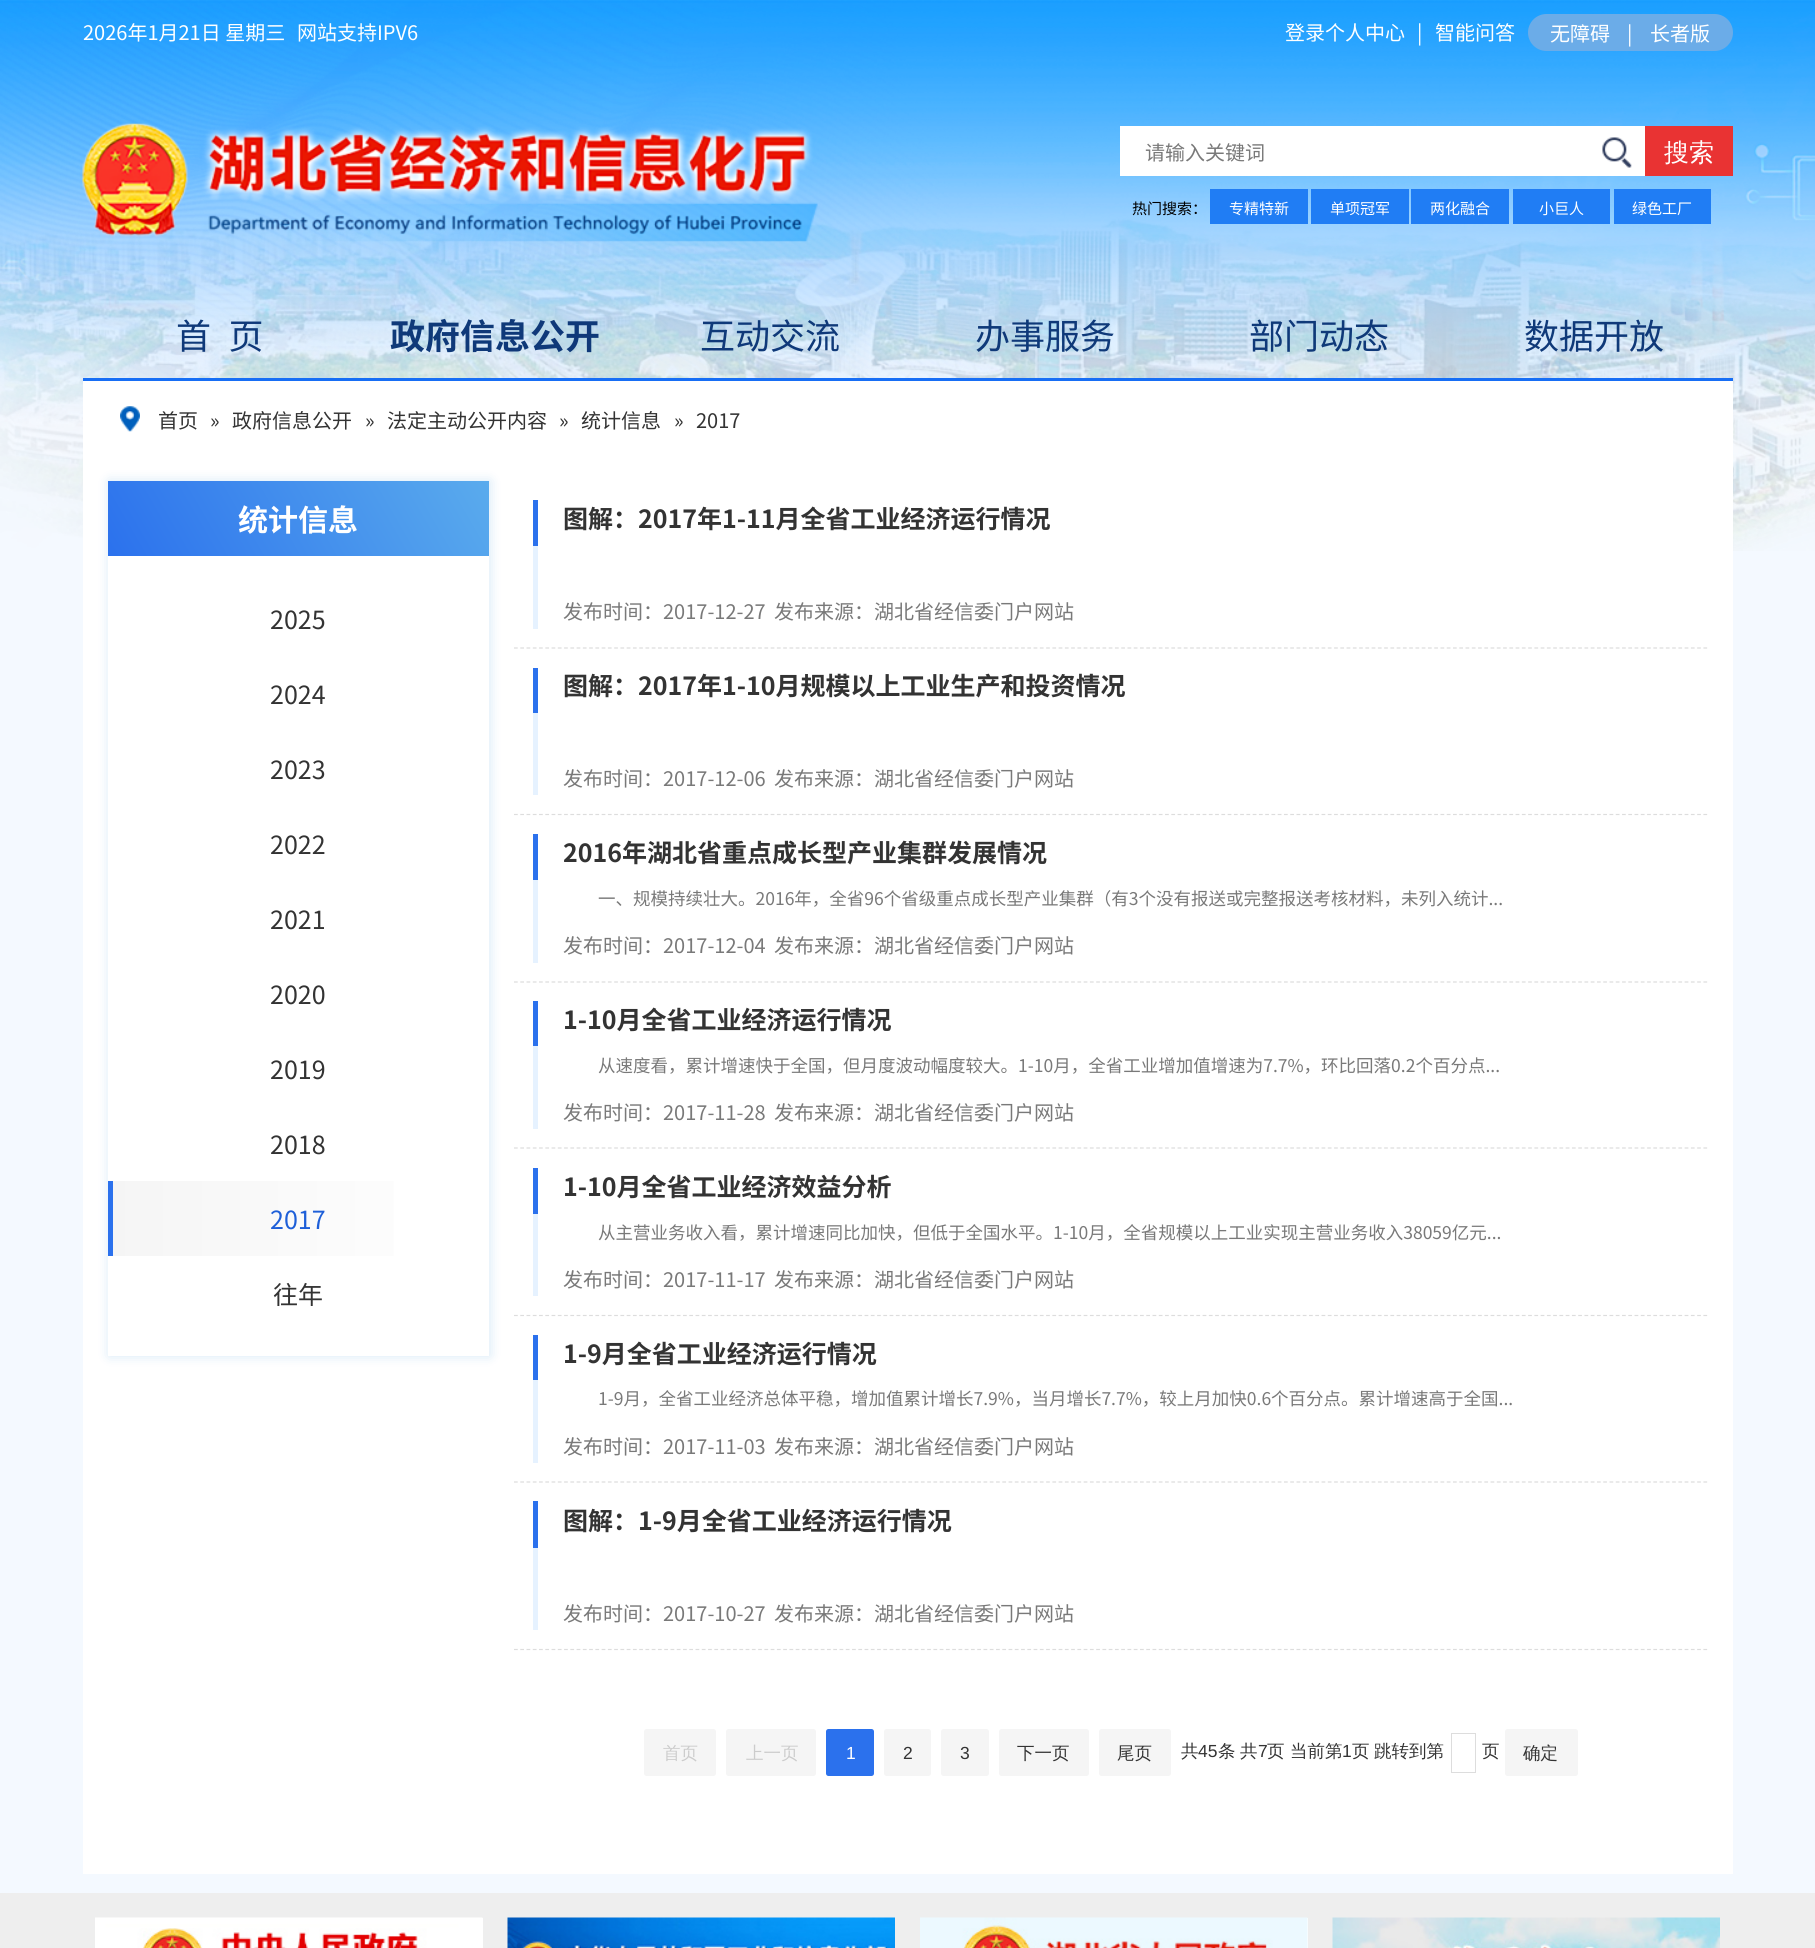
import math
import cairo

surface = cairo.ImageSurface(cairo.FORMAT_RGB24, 1815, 1948)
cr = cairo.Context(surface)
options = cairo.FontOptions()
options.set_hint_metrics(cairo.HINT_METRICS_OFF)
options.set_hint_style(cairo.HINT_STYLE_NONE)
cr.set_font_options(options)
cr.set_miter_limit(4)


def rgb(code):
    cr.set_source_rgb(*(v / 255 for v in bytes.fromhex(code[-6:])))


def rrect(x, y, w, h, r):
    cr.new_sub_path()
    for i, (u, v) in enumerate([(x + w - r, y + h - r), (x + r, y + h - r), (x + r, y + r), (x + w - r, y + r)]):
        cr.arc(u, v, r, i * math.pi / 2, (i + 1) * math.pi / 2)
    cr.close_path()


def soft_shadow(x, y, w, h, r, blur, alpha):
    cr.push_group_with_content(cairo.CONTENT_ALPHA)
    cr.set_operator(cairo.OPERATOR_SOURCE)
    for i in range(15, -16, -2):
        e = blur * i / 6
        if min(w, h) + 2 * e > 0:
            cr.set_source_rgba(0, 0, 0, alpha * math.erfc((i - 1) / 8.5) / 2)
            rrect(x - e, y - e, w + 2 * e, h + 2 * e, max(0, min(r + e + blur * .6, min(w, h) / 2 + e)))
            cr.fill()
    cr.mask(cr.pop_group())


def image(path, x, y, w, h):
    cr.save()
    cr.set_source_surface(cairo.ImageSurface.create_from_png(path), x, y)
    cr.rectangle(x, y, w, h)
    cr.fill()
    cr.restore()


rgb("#f4f9ff")
cr.paint()
image("img/1.png", 0, 0, 1815, 551)
rgb("#6bace8")
rrect(1528, 14, 205, 37, 18.5)
cr.fill()
image("img/2.png", 82, 123, 736, 119)
rgb("#ffffff")
cr.rectangle(1120, 126, 525, 50)
cr.fill()
rgb("#e93333")
cr.rectangle(1645, 126, 88, 50)
cr.fill()
image("img/3.png", 1602, 137, 30, 31)
for x, y, w, h, color in [
    (1210, 189, 98, 35, "#207df4"),
    (1311, 189, 98, 35, "#207df4"),
    (1411, 189, 98, 35, "#207df4"),
    (1513, 189, 97, 35, "#207df4"),
    (1614, 189, 97, 35, "#207df4"),
    (83, 381, 1650, 1493, "#ffffff"),
    (83, 378, 1650, 3, "#176ef5"),
]:
    rgb(color)
    cr.rectangle(x, y, w, h)
    cr.fill()
image("img/4.png", 120, 406, 20, 26)
rgb("#046fc7")
soft_shadow(109, 481, 381, 875, 0, 6, 0.16)
rgb("#ffffff")
cr.rectangle(108, 556, 381, 800)
cr.fill()
gradient = cairo.LinearGradient(139, 611, 457, 427)
gradient.add_color_stop_rgba(0, 0.169, 0.443, 0.929, 1)
gradient.add_color_stop_rgba(1, 0.353, 0.671, 0.929, 1)
cr.set_source(gradient)
cr.rectangle(108, 481, 381, 75)
cr.fill()
gradient = cairo.LinearGradient(108, 1219, 489, 1219)
gradient.add_color_stop_rgba(0, 0.961, 0.961, 0.961, 1)
gradient.add_color_stop_rgba(1, 1, 1, 1, 1)
cr.set_source(gradient)
cr.rectangle(113, 1181, 281, 75)
cr.fill()
rgb("#2b71ed")
cr.rectangle(108, 1181, 5, 75)
cr.fill()
cr.new_path()
cr.move_to(514, 648)
cr.line_to(1707.5, 648)
rgb("#dddddd")
cr.set_line_width(1.2)
cr.set_dash([3.75, 2.51])
cr.stroke()
rgb("#2b71ed")
cr.rectangle(533, 500, 5, 46)
cr.fill()
rgb("#e6f2ff")
cr.rectangle(533, 546, 5, 83)
cr.fill()
cr.new_path()
cr.move_to(514, 814.5)
cr.line_to(1707.5, 814.5)
rgb("#dddddd")
cr.stroke()
rgb("#2b71ed")
cr.rectangle(533, 668, 5, 45)
cr.fill()
rgb("#e6f2ff")
cr.rectangle(533, 713, 5, 82)
cr.fill()
cr.new_path()
cr.move_to(514, 982)
cr.line_to(1707.5, 982)
rgb("#dddddd")
cr.stroke()
rgb("#2b71ed")
cr.rectangle(533, 834, 5, 46)
cr.fill()
rgb("#e6f2ff")
cr.rectangle(533, 880, 5, 83)
cr.fill()
cr.new_path()
cr.move_to(514, 1148)
cr.line_to(1707.5, 1148)
rgb("#dddddd")
cr.stroke()
rgb("#2b71ed")
cr.rectangle(533, 1001, 5, 45)
cr.fill()
rgb("#e6f2ff")
cr.rectangle(533, 1046, 5, 83)
cr.fill()
cr.new_path()
cr.move_to(514, 1315.5)
cr.line_to(1707.5, 1315.5)
rgb("#dddddd")
cr.stroke()
rgb("#2b71ed")
cr.rectangle(533, 1168, 5, 46)
cr.fill()
rgb("#e6f2ff")
cr.rectangle(533, 1214, 5, 82)
cr.fill()
cr.new_path()
cr.move_to(514, 1482)
cr.line_to(1707.5, 1482)
rgb("#dddddd")
cr.stroke()
rgb("#2b71ed")
cr.rectangle(533, 1335, 5, 45)
cr.fill()
rgb("#e6f2ff")
cr.rectangle(533, 1380, 5, 83)
cr.fill()
cr.new_path()
cr.move_to(514, 1649.5)
cr.line_to(1707.5, 1649.5)
rgb("#dddddd")
cr.stroke()
rgb("#2b71ed")
cr.rectangle(533, 1501, 5, 47)
cr.fill()
rgb("#e6f2ff")
cr.rectangle(533, 1548, 5, 82)
cr.fill()
rgb("#f5f5f5")
rrect(644, 1729, 72, 47, 2.5)
cr.fill()
rrect(726, 1729, 90, 47, 2.5)
cr.fill()
rgb("#2b71ed")
rrect(826, 1729, 48, 47, 2.5)
cr.fill()
rgb("#f5f5f5")
rrect(884, 1729, 47, 47, 2.5)
cr.fill()
rrect(941, 1729, 48, 47, 2.5)
cr.fill()
rrect(999, 1729, 90, 47, 2.5)
cr.fill()
rrect(1099, 1729, 72, 47, 2.5)
cr.fill()
cr.rectangle(1451.5, 1733.5, 24, 39)
rgb("#dddddd")
cr.set_line_width(1)
cr.set_dash([])
cr.stroke()
rgb("#f5f5f5")
rrect(1505, 1729, 73, 47, 2.5)
cr.fill()
rgb("#eeeeee")
cr.rectangle(0, 1893, 1815, 55)
cr.fill()
rgb("#ffffff")
cr.rectangle(482, 1918, 1, 30)
cr.fill()
image("img/5.png", 95, 1917, 388, 31)
image("img/6.png", 507, 1917, 388, 31)
cr.rectangle(1307, 1918, 1, 30)
cr.fill()
image("img/7.png", 920, 1917, 388, 31)
image("img/8.png", 1332, 1917, 388, 31)
cr.select_font_face("Noto Sans CJK SC")
cr.set_font_size(20)
for x, y, s in [
    (83, 40, "2026年1月21日 星期三"),
    (297, 40, "网站支持IPV6"),
    (1285, 40, "登录个人中心"),
    (1417, 40, "|"),
    (1435, 40, "智能问答"),
    (1550, 41, "无障碍"),
    (1627, 41, "|"),
    (1650, 41, "长者版"),
]:
    cr.move_to(x, y)
    cr.show_text(s)
rgb("#797979")
cr.move_to(1145, 160)
cr.show_text("请输入关键词")
cr.select_font_face("WenQuanYi Zen Hei Medium")
cr.set_font_size(25)
rgb("#ffffff")
cr.move_to(1664, 161)
cr.show_text("搜索")
cr.select_font_face("Noto Sans CJK SC")
cr.set_font_size(15)
rgb("#000000")
cr.move_to(1132, 214)
cr.show_text("热门搜索：")
rgb("#ffffff")
for x, y, s in [
    (1229, 214, "专精特新"),
    (1330, 214, "单项冠军"),
    (1430, 214, "两化融合"),
    (1539, 214, "小巨人"),
    (1632, 214, "绿色工厂"),
]:
    cr.move_to(x, y)
    cr.show_text(s)
cr.set_font_size(35)
rgb("#0f3979")
cr.move_to(176, 349)
cr.show_text("首 页")
cr.select_font_face("Noto Sans CJK SC", cairo.FONT_SLANT_NORMAL, cairo.FONT_WEIGHT_BOLD)
cr.move_to(390, 349)
cr.show_text("政府信息公开")
cr.select_font_face("Noto Sans CJK SC")
for x, y, s in [
    (700, 349, "互动交流"),
    (975, 349, "办事服务"),
    (1249, 349, "部门动态"),
    (1524, 349, "数据开放"),
]:
    cr.move_to(x, y)
    cr.show_text(s)
cr.set_font_size(20)
rgb("#333333")
for x, y, s in [
    (158, 428, "首页"),
    (210, 428, "»"),
    (232, 428, "政府信息公开"),
    (365, 428, "»"),
    (387, 428, "法定主动公开内容"),
    (559, 428, "»"),
    (581, 428, "统计信息"),
    (674, 428, "»"),
    (696, 428, "2017"),
]:
    cr.move_to(x, y)
    cr.show_text(s)
cr.select_font_face("Noto Sans CJK SC", cairo.FONT_SLANT_NORMAL, cairo.FONT_WEIGHT_BOLD)
cr.set_font_size(30)
rgb("#ffffff")
cr.move_to(238, 531)
cr.show_text("统计信息")
cr.select_font_face("Noto Sans CJK SC")
cr.set_font_size(25)
rgb("#333333")
for x, y, s in [
    (270, 629, "2025"),
    (270, 704, "2024"),
    (270, 779, "2023"),
    (270, 854, "2022"),
    (270, 929, "2021"),
    (270, 1004, "2020"),
    (270, 1079, "2019"),
    (270, 1154, "2018"),
]:
    cr.move_to(x, y)
    cr.show_text(s)
rgb("#1e5fd8")
cr.move_to(270, 1229)
cr.show_text("2017")
rgb("#333333")
cr.move_to(273, 1304)
cr.show_text("往年")
cr.select_font_face("Noto Sans CJK SC", cairo.FONT_SLANT_NORMAL, cairo.FONT_WEIGHT_BOLD)
cr.move_to(563, 528)
cr.show_text("图解：2017年1-11月全省工业经济运行情况")
cr.select_font_face("Noto Sans CJK SC")
cr.set_font_size(20)
rgb("#797979")
cr.move_to(563, 619)
cr.show_text("发布时间：2017-12-27")
cr.move_to(774, 619)
cr.show_text("发布来源：湖北省经信委门户网站")
cr.select_font_face("Noto Sans CJK SC", cairo.FONT_SLANT_NORMAL, cairo.FONT_WEIGHT_BOLD)
cr.set_font_size(25)
rgb("#333333")
cr.move_to(563, 695)
cr.show_text("图解：2017年1-10月规模以上工业生产和投资情况")
cr.select_font_face("Noto Sans CJK SC")
cr.set_font_size(20)
rgb("#797979")
cr.move_to(563, 786)
cr.show_text("发布时间：2017-12-06")
cr.move_to(774, 786)
cr.show_text("发布来源：湖北省经信委门户网站")
cr.select_font_face("Noto Sans CJK SC", cairo.FONT_SLANT_NORMAL, cairo.FONT_WEIGHT_BOLD)
cr.set_font_size(25)
rgb("#333333")
cr.move_to(563, 862)
cr.show_text("2016年湖北省重点成长型产业集群发展情况")
cr.select_font_face("Noto Sans CJK SC")
cr.set_font_size(17.5)
rgb("#797979")
cr.move_to(598, 905)
cr.show_text("一、规模持续壮大。2016年，全省96个省级重点成长型产业集群（有3个没有报送或完整报送考核材料，未列入统计...")
cr.set_font_size(20)
cr.move_to(563, 953)
cr.show_text("发布时间：2017-12-04")
cr.move_to(774, 953)
cr.show_text("发布来源：湖北省经信委门户网站")
cr.select_font_face("Noto Sans CJK SC", cairo.FONT_SLANT_NORMAL, cairo.FONT_WEIGHT_BOLD)
cr.set_font_size(25)
rgb("#333333")
cr.move_to(563, 1029)
cr.show_text("1-10月全省工业经济运行情况")
cr.select_font_face("Noto Sans CJK SC")
cr.set_font_size(17.5)
rgb("#797979")
cr.move_to(598, 1072)
cr.show_text("从速度看，累计增速快于全国，但月度波动幅度较大。1-10月，全省工业增加值增速为7.7%，环比回落0.2个百分点...")
cr.set_font_size(20)
cr.move_to(563, 1120)
cr.show_text("发布时间：2017-11-28")
cr.move_to(774, 1120)
cr.show_text("发布来源：湖北省经信委门户网站")
cr.select_font_face("Noto Sans CJK SC", cairo.FONT_SLANT_NORMAL, cairo.FONT_WEIGHT_BOLD)
cr.set_font_size(25)
rgb("#333333")
cr.move_to(563, 1196)
cr.show_text("1-10月全省工业经济效益分析")
cr.select_font_face("Noto Sans CJK SC")
cr.set_font_size(17.5)
rgb("#797979")
cr.move_to(598, 1239)
cr.show_text("从主营业务收入看，累计增速同比加快，但低于全国水平。1-10月，全省规模以上工业实现主营业务收入38059亿元...")
cr.set_font_size(20)
cr.move_to(563, 1287)
cr.show_text("发布时间：2017-11-17")
cr.move_to(774, 1287)
cr.show_text("发布来源：湖北省经信委门户网站")
cr.select_font_face("Noto Sans CJK SC", cairo.FONT_SLANT_NORMAL, cairo.FONT_WEIGHT_BOLD)
cr.set_font_size(25)
rgb("#333333")
cr.move_to(563, 1363)
cr.show_text("1-9月全省工业经济运行情况")
cr.select_font_face("Noto Sans CJK SC")
cr.set_font_size(17.5)
rgb("#797979")
cr.move_to(598, 1405)
cr.show_text("1-9月，全省工业经济总体平稳，增加值累计增长7.9%，当月增长7.7%，较上月加快0.6个百分点。累计增速高于全国...")
cr.set_font_size(20)
cr.move_to(563, 1454)
cr.show_text("发布时间：2017-11-03")
cr.move_to(774, 1454)
cr.show_text("发布来源：湖北省经信委门户网站")
cr.select_font_face("Noto Sans CJK SC", cairo.FONT_SLANT_NORMAL, cairo.FONT_WEIGHT_BOLD)
cr.set_font_size(25)
rgb("#333333")
cr.move_to(563, 1530)
cr.show_text("图解：1-9月全省工业经济运行情况")
cr.select_font_face("Noto Sans CJK SC")
cr.set_font_size(20)
rgb("#797979")
cr.move_to(563, 1621)
cr.show_text("发布时间：2017-10-27")
cr.move_to(774, 1621)
cr.show_text("发布来源：湖北省经信委门户网站")
cr.select_font_face("WenQuanYi Zen Hei Medium")
cr.set_font_size(17.5)
rgb("#cccccc")
cr.move_to(663, 1759)
cr.show_text("首页")
cr.move_to(746, 1759)
cr.show_text("上一页")
cr.select_font_face("Liberation Sans")
rgb("#ffffff")
cr.move_to(846, 1759)
cr.show_text("1")
rgb("#333333")
cr.move_to(903, 1759)
cr.show_text("2")
cr.move_to(960, 1759)
cr.show_text("3")
cr.select_font_face("WenQuanYi Zen Hei Medium")
for x, y, s in [
    (1017, 1759, "下一页"),
    (1117, 1759, "尾页"),
    (1181, 1757, "共"),
]:
    cr.move_to(x, y)
    cr.show_text(s)
cr.select_font_face("Liberation Sans")
cr.move_to(1198, 1757)
cr.show_text("45")
cr.select_font_face("WenQuanYi Zen Hei Medium")
cr.move_to(1218, 1757)
cr.show_text("条")
cr.move_to(1240, 1757)
cr.show_text("共")
cr.select_font_face("Liberation Sans")
cr.move_to(1258, 1757)
cr.show_text("7")
cr.select_font_face("WenQuanYi Zen Hei Medium")
cr.move_to(1267, 1757)
cr.show_text("页")
cr.move_to(1290, 1757)
cr.show_text("当前第")
cr.select_font_face("Liberation Sans")
cr.move_to(1342, 1757)
cr.show_text("1")
cr.select_font_face("WenQuanYi Zen Hei Medium")
for x, y, s in [
    (1352, 1757, "页"),
    (1374, 1757, "跳转到第"),
    (1482, 1757, "页"),
    (1523, 1759, "确定"),
]:
    cr.move_to(x, y)
    cr.show_text(s)
surface.write_to_png("page.png")
